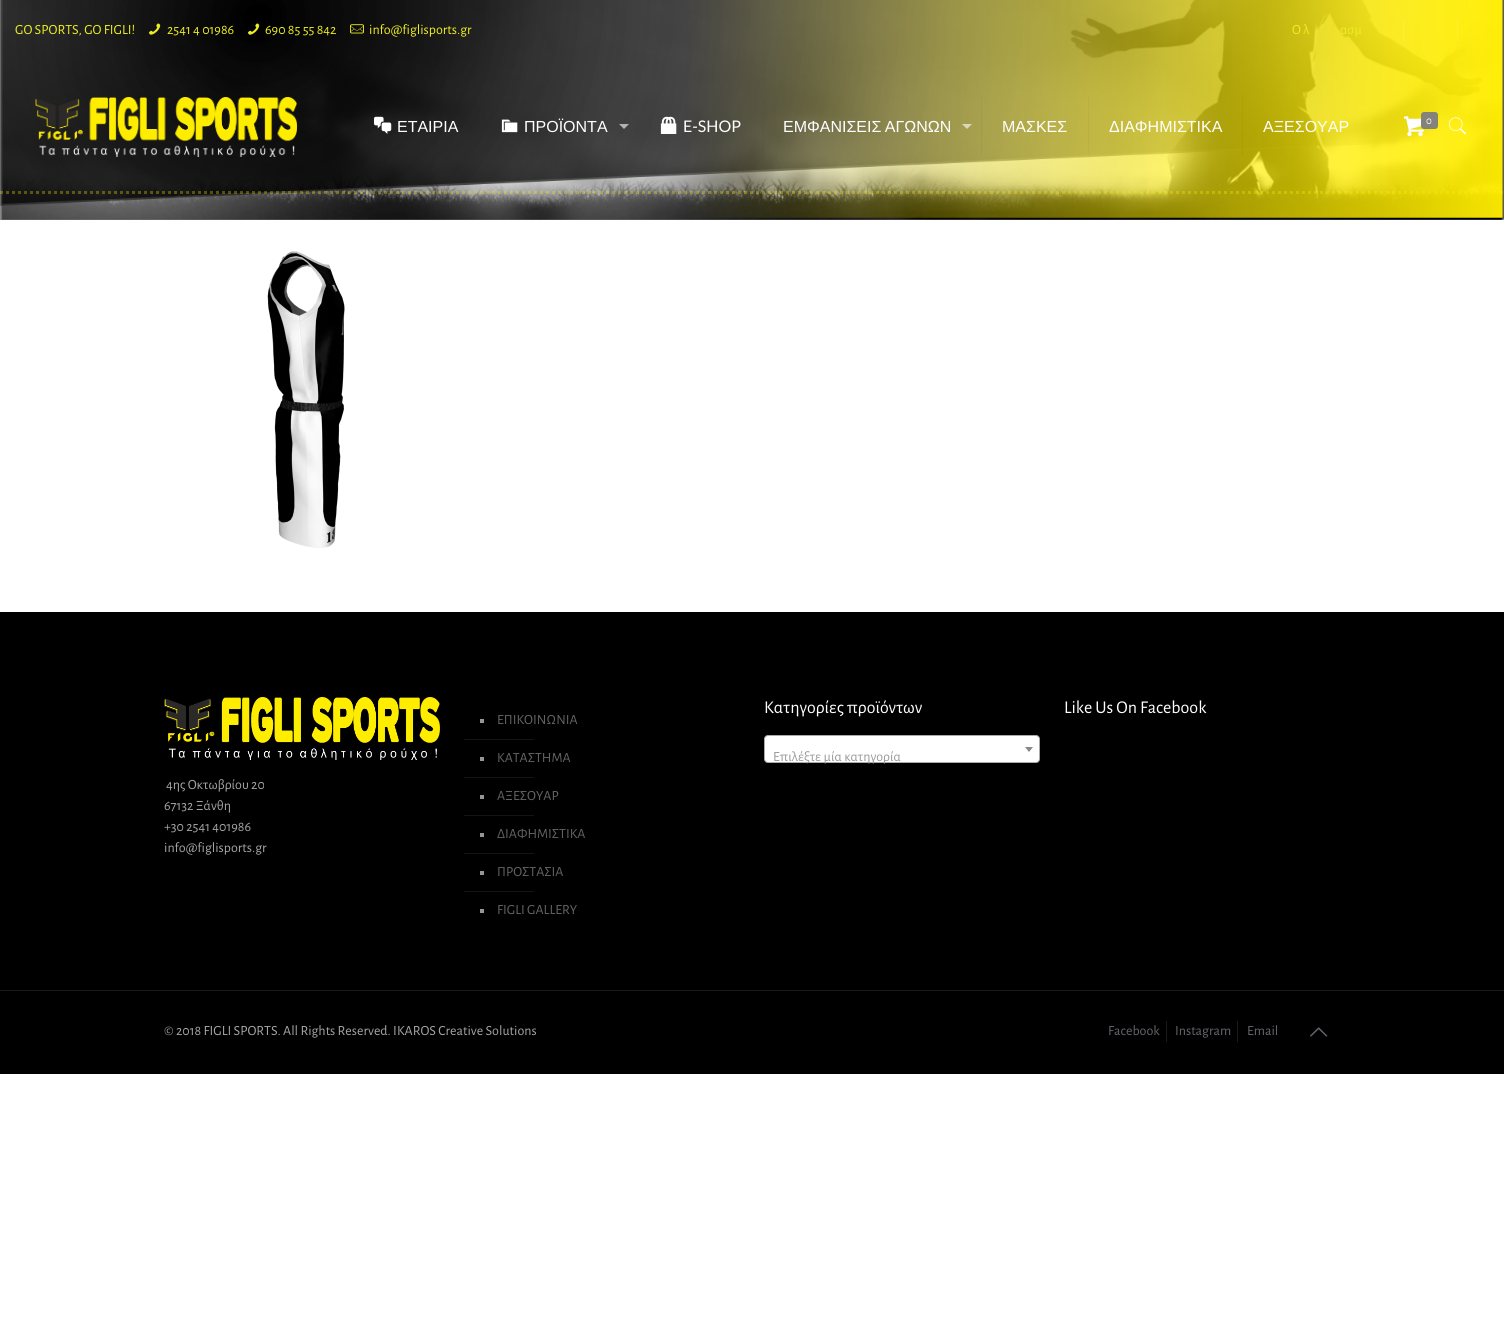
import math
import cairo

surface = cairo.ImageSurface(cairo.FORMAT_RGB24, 1504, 1334)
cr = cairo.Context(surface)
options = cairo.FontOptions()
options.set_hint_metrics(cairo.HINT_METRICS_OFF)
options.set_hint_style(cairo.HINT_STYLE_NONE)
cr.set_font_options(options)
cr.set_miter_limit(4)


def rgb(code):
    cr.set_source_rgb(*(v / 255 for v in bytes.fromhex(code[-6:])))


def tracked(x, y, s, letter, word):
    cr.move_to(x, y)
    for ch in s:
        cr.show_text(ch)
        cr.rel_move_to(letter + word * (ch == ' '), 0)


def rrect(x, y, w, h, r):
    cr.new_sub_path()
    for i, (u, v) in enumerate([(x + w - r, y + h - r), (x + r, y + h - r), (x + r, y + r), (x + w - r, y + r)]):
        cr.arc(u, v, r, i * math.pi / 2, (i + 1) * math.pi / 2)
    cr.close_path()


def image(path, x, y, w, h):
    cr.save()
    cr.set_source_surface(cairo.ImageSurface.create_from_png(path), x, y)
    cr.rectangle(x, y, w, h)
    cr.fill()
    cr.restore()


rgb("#ffffff")
cr.paint()
rgb("#888888")
cr.rectangle(0, 0, 1504, 220)
cr.fill()
image("img/1.png", 0, 0, 1504, 220)
image("img/2.png", 149, 23, 12, 12)
image("img/3.png", 248, 23, 12, 12)
image("img/4.png", 350, 24, 14, 10)
rgb("#fbee38")
cr.rectangle(1403, 20, 1, 21)
cr.fill()
rgb("#fef02d")
cr.rectangle(1457, 20, 1, 21)
cr.fill()
cr.new_path()
cr.move_to(0, 192.5)
cr.line_to(1504, 192.5)
cr.set_source_rgba(1, 0.929, 0, 0.3)
cr.set_line_width(3)
cr.set_dash([3, 3])
cr.stroke()
image("img/5.png", 35, 97, 262, 60)
image("img/6.png", 373, 116, 19, 18)
image("img/7.png", 501, 119, 17, 14)
rgb("#b3b2b2")
cr.new_path()
cr.move_to(619, 124)
cr.line_to(629, 124)
cr.line_to(624, 129)
cr.close_path()
cr.fill()
cr.set_source_rgba(0, 0, 0, 0.03)
cr.rectangle(762, 96, 1, 60)
cr.fill()
image("img/8.png", 660, 116, 17, 18)
rgb("#525041")
cr.rectangle(741, 116, 1, 19)
cr.fill()
rgb("#a29c4a")
cr.rectangle(981, 96, 1, 60)
cr.fill()
rgb("#dbd8b8")
cr.new_path()
cr.move_to(962, 124)
cr.line_to(972, 124)
cr.line_to(967, 129)
cr.close_path()
cr.fill()
cr.set_source_rgba(0, 0, 0, 0.03)
cr.rectangle(1088, 96, 1, 60)
cr.fill()
cr.rectangle(1242, 96, 1, 60)
cr.fill()
image("img/9.png", 1404, 116, 20, 21)
rgb("#83837b")
rrect(1421, 112, 17, 17, 3)
cr.fill()
image("img/10.png", 1448, 117, 19, 18)
image("img/11.png", 267, 251, 78, 297)
rgb("#000000")
cr.rectangle(0, 612, 1504, 462)
cr.fill()
rgb("#ffffff")
rrect(764.5, 735.5, 275, 27, 3.5)
cr.fill_preserve()
rgb("#aaaaaa")
cr.set_line_width(1)
cr.set_dash([])
cr.stroke()
rgb("#888888")
cr.new_path()
cr.move_to(1025, 747)
cr.line_to(1033, 747)
cr.line_to(1029, 752)
cr.close_path()
cr.fill()
image("img/12.png", 164, 697, 276, 63)
for x, y, w, h, color in [
    (480, 719, 4, 4, "#969696"),
    (464, 739, 70, 1, "#141414"),
    (480, 757, 4, 4, "#969696"),
    (464, 777, 70, 1, "#141414"),
    (480, 795, 4, 4, "#969696"),
    (464, 815, 70, 1, "#141414"),
    (480, 833, 4, 4, "#969696"),
    (464, 853, 70, 1, "#141414"),
    (480, 871, 4, 4, "#969696"),
    (464, 891, 70, 1, "#141414"),
    (480, 909, 4, 4, "#969696"),
    (0, 990, 1504, 1, "#1a1a1a"),
    (1166, 1021, 1, 21, "#1a1a1a"),
    (1237, 1021, 1, 21, "#1a1a1a"),
]:
    rgb(color)
    cr.rectangle(x, y, w, h)
    cr.fill()
image("img/13.png", 1310, 1027, 18, 10)
cr.select_font_face("Alegreya Sans")
cr.set_font_size(14)
rgb("#eeee22")
for x, y, s in [
    (15, 34, "GO SPORTS, GO FIGLI!"),
    (167, 34, "2541 4 01986"),
    (265, 34, "690 85 55 842"),
    (369, 34, "info@figlisports.gr"),
    (1292, 34, "Ο λ"),
    (1340, 34, "ασμ"),
]:
    cr.move_to(x, y)
    cr.show_text(s)
cr.select_font_face("Liberation Sans")
cr.set_font_size(16)
rgb("#ffffff")
cr.move_to(397, 132)
cr.show_text("ΕΤΑΙΡΙΑ")
cr.move_to(524, 132)
cr.show_text("ΠΡΟΪΟΝΤΑ")
cr.select_font_face("Lato")
cr.move_to(683, 132)
cr.show_text("E-SHOP")
cr.select_font_face("Liberation Sans")
tracked(783, 132, "ΕΜΦΑΝΙΣΕΙΣ ΑΓΩΝΩΝ", 0, -1)
for x, y, s in [
    (1002, 132, "ΜΑΣΚΕΣ"),
    (1109, 132, "ΔΙΑΦΗΜΙΣΤΙΚΑ"),
    (1263, 132, "ΑΞΕΣΟΥΑΡ"),
]:
    cr.move_to(x, y)
    cr.show_text(s)
cr.select_font_face("Alegreya Sans")
cr.set_font_size(11)
cr.move_to(1426, 124)
cr.show_text("0")
cr.set_font_size(18)
cr.move_to(764, 713)
cr.show_text("Κατηγορίες προϊόντων")
cr.set_font_size(14)
rgb("#999999")
cr.move_to(773, 761)
cr.show_text("Επιλέξτε μία κατηγορία")
cr.set_font_size(18)
rgb("#ffffff")
cr.move_to(1064, 713)
cr.show_text("Like Us On Facebook")
cr.set_font_size(14)
rgb("#a6a6a6")
for x, y, s in [
    (166, 789, "4ης Οκτωβρίου 20"),
    (164, 810, "67132 Ξάνθη"),
    (164, 831, "+30 2541 401986"),
    (164, 852, "info@figlisports.gr"),
]:
    cr.move_to(x, y)
    cr.show_text(s)
rgb("#646464")
for x, y, s in [
    (497, 724, "ΕΠΙΚΟΙΝΩΝΙΑ"),
    (497, 762, "ΚΑΤΑΣΤΗΜΑ"),
    (497, 800, "ΑΞΕΣΟΥΑΡ"),
    (497, 838, "ΔΙΑΦΗΜΙΣΤΙΚΑ"),
    (497, 876, "ΠΡΟΣΤΑΣΙΑ"),
    (497, 914, "FIGLI GALLERY"),
]:
    cr.move_to(x, y)
    cr.show_text(s)
rgb("#a6a6a6")
cr.move_to(164, 1035)
cr.show_text("© 2018 FIGLI SPORTS. All Rights Reserved. IKAROS Creative Solutions")
rgb("#65666c")
for x, y, s in [
    (1108, 1035, "Facebook"),
    (1175, 1035, "Instagram"),
    (1247, 1035, "Email"),
]:
    cr.move_to(x, y)
    cr.show_text(s)
surface.write_to_png("page.png")
